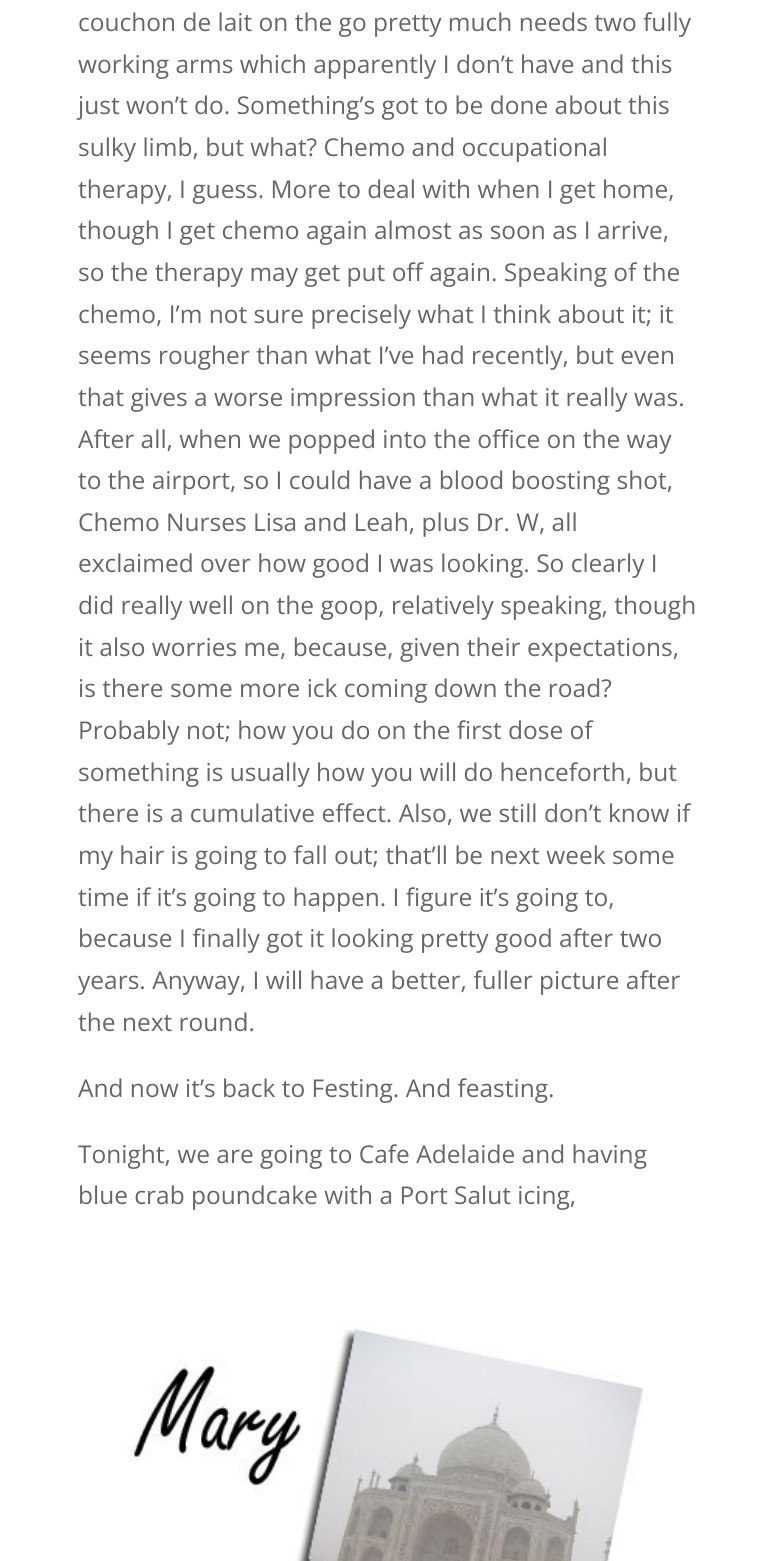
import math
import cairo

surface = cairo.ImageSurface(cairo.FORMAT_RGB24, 774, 1561)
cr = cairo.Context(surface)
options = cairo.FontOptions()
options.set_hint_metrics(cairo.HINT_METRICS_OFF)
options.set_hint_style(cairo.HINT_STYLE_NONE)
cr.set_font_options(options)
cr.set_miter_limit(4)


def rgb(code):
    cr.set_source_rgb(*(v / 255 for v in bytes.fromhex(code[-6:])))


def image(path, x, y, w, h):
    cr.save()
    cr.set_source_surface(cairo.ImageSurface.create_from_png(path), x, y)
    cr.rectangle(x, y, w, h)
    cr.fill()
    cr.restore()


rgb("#ffffff")
cr.paint()
image("img/1.png", 127, 1323, 517, 238)
cr.select_font_face("Open Sans")
cr.set_font_size(24.5)
rgb("#666666")
for x, y, s in [
    (78, 31, "couchon de lait on the go pretty much needs two fully"),
    (78, 73, "working arms which apparently I don’t have and this"),
    (78, 114, "just won’t do. Something’s got to be done about this"),
    (78, 156, "sulky limb, but what? Chemo and occupational"),
    (78, 198, "therapy, I guess. More to deal with when I get home,"),
    (78, 239, "though I get chemo again almost as soon as I arrive,"),
    (78, 281, "so the therapy may get put off again. Speaking of the"),
    (78, 323, "chemo, I’m not sure precisely what I think about it; it"),
    (78, 364, "seems rougher than what I’ve had recently, but even"),
    (78, 406, "that gives a worse impression than what it really was."),
    (78, 448, "After all, when we popped into the office on the way"),
    (78, 489, "to the airport, so I could have a blood boosting shot,"),
    (78, 531, "Chemo Nurses Lisa and Leah, plus Dr. W, all"),
    (78, 572, "exclaimed over how good I was looking. So clearly I"),
    (78, 614, "did really well on the goop, relatively speaking, though"),
    (78, 656, "it also worries me, because, given their expectations,"),
    (78, 697, "is there some more ick coming down the road?"),
    (78, 739, "Probably not; how you do on the first dose of"),
    (78, 781, "something is usually how you will do henceforth, but"),
    (78, 822, "there is a cumulative effect. Also, we still don’t know if"),
    (78, 864, "my hair is going to fall out; that’ll be next week some"),
    (78, 906, "time if it’s going to happen. I figure it’s going to,"),
    (78, 947, "because I finally got it looking pretty good after two"),
    (78, 989, "years. Anyway, I will have a better, fuller picture after"),
    (78, 1031, "the next round."),
    (78, 1097, "And now it’s back to Festing. And feasting."),
    (78, 1163, "Tonight, we are going to Cafe Adelaide and having"),
    (78, 1204, "blue crab poundcake with a Port Salut icing,"),
]:
    cr.move_to(x, y)
    cr.show_text(s)
surface.write_to_png("page.png")
